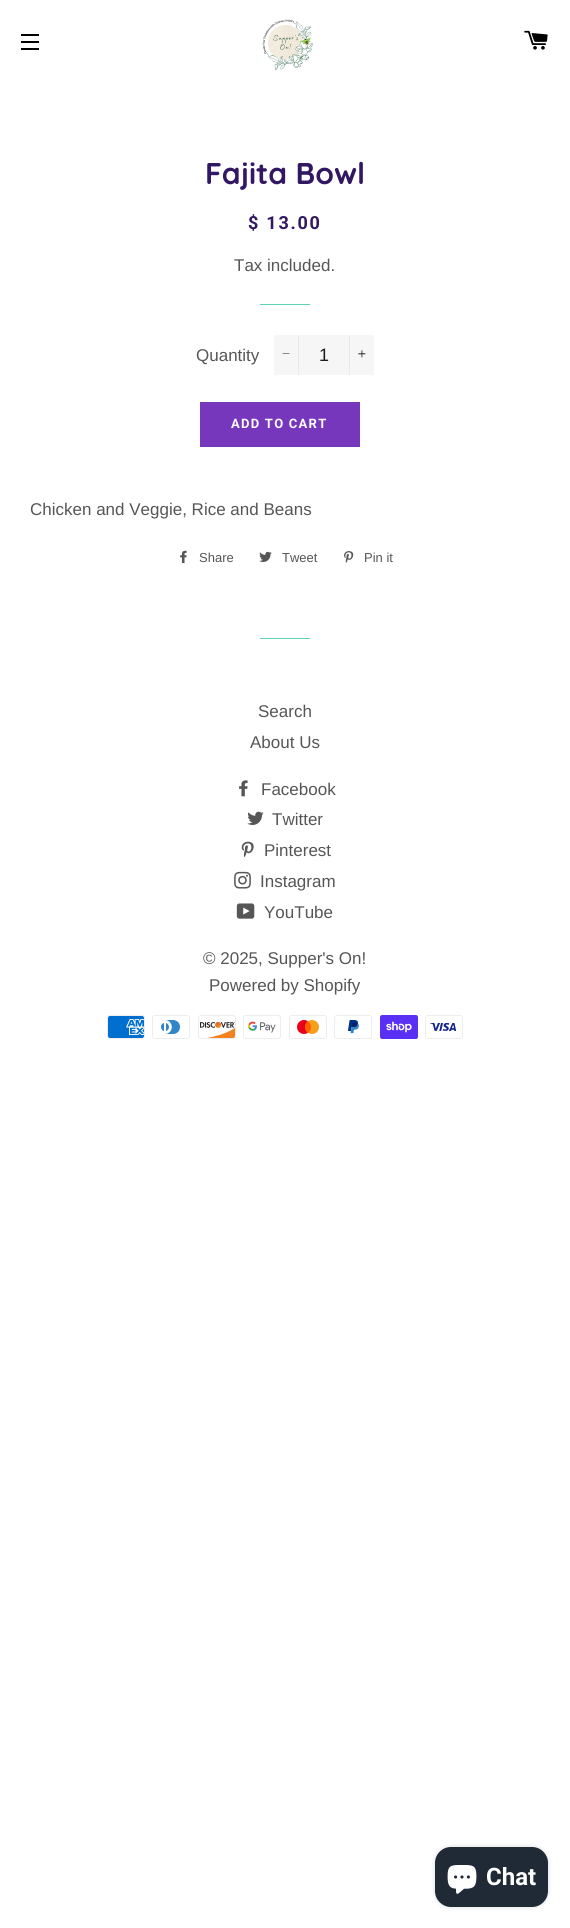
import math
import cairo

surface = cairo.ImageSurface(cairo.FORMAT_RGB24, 570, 1928)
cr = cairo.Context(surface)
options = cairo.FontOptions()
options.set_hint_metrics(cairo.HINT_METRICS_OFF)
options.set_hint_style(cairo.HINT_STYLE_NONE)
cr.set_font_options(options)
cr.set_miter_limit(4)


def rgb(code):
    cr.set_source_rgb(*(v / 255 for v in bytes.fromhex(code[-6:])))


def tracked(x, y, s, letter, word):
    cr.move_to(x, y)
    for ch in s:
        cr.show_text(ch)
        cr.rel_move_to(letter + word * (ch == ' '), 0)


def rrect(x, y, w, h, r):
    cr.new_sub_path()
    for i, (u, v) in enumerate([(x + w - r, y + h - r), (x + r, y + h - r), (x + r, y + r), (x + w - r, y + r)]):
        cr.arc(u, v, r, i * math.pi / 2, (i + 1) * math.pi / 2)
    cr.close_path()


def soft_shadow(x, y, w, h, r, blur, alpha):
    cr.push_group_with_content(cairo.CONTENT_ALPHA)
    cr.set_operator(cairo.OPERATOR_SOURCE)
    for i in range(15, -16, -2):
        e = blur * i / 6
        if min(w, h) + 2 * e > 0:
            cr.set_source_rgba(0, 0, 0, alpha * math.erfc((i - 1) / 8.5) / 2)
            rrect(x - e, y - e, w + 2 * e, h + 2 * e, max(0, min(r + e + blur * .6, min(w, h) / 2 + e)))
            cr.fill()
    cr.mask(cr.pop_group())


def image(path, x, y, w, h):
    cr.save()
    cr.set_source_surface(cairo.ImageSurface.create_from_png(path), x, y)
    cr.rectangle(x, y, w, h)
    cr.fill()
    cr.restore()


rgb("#ffffff")
cr.paint()
for x, y, w, h, color in [
    (21, 34, 18, 2, "#000000"),
    (21, 41, 18, 2, "#000000"),
    (21, 48, 18, 2, "#000000"),
]:
    rgb(color)
    cr.rectangle(x, y, w, h)
    cr.fill()
image("img/1.png", 262, 19, 51, 52)
image("img/2.png", 524, 30, 24, 20)
for x, y, w, h, color in [
    (260, 304, 50, 1, "#5dd2b4"),
    (274, 335, 100, 40, "#f6f6f6"),
    (298, 335, 1, 40, "#e9e9e9"),
]:
    rgb(color)
    cr.rectangle(x, y, w, h)
    cr.fill()
rgb("#1c1d1d")
cr.new_path()
cr.move_to(282.5, 353.5)
cr.line_to(289.5, 353.5)
cr.line_to(289.5, 354)
cr.line_to(282.5, 354)
cr.close_path()
cr.fill()
rgb("#e9e9e9")
cr.rectangle(349, 335, 1, 40)
cr.fill()
image("img/3.png", 358, 350, 8, 8)
rgb("#7737bd")
cr.rectangle(200, 402, 160, 45)
cr.fill()
image("img/4.png", 180, 550, 7, 14)
image("img/5.png", 259, 551, 13, 11)
image("img/6.png", 344, 551, 10, 12)
rgb("#5dd2b4")
cr.rectangle(260, 638, 50, 1)
cr.fill()
image("img/7.png", 239, 780, 9, 17)
image("img/8.png", 247, 811, 17, 14)
image("img/9.png", 241, 841, 13, 17)
image("img/10.png", 234, 871, 17, 18)
image("img/11.png", 236, 903, 19, 16)
image("img/12.png", 107, 1015, 38, 24)
image("img/13.png", 152, 1015, 38, 24)
image("img/14.png", 198, 1015, 38, 24)
image("img/15.png", 243, 1015, 38, 24)
image("img/16.png", 289, 1015, 38, 24)
image("img/17.png", 334, 1015, 38, 24)
image("img/18.png", 380, 1015, 38, 24)
image("img/19.png", 425, 1015, 38, 24)
rgb("#000000")
soft_shadow(435, 1847, 113, 60, 16, 2.5, 0.15)
rgb("#202a36")
rrect(435, 1847, 113, 60, 16)
cr.fill()
image("img/20.png", 447, 1865, 30, 29)
cr.select_font_face("Quicksand", cairo.FONT_SLANT_NORMAL, cairo.FONT_WEIGHT_BOLD)
cr.set_font_size(30)
rgb("#321863")
cr.move_to(205, 184)
cr.show_text("Fajita Bowl")
cr.select_font_face("Roboto", cairo.FONT_SLANT_NORMAL, cairo.FONT_WEIGHT_BOLD)
cr.set_font_size(18)
tracked(248, 229, "$ 13.00", 1.75, 0)
cr.select_font_face("Liberation Sans")
cr.set_font_size(17)
rgb("#565656")
cr.move_to(234, 271)
cr.show_text("Tax included.")
cr.move_to(196, 361)
cr.show_text("Quantity")
cr.set_font_size(18)
rgb("#1c1d1d")
cr.move_to(319, 361)
cr.show_text("1")
cr.select_font_face("Roboto", cairo.FONT_SLANT_NORMAL, cairo.FONT_WEIGHT_BOLD)
cr.set_font_size(13)
rgb("#ffffff")
tracked(231, 428, "ADD TO CART", 1.25, 0)
cr.select_font_face("Liberation Sans")
cr.set_font_size(17)
rgb("#565656")
cr.move_to(30, 515)
cr.show_text("Chicken and Veggie, Rice and Beans")
cr.set_font_size(13)
for x, y, s in [
    (199, 562, "Share"),
    (282, 562, "Tweet"),
    (364, 562, "Pin it"),
]:
    cr.move_to(x, y)
    cr.show_text(s)
cr.set_font_size(17)
for x, y, s in [
    (258, 717, "Search"),
    (250, 748, "About Us"),
    (261, 795, "Facebook"),
    (272, 825, "Twitter"),
    (264, 856, "Pinterest"),
    (260, 887, "Instagram"),
    (264, 918, "YouTube"),
    (203, 964, "© 2025, Supper's On!"),
    (209, 991, "Powered by Shopify"),
]:
    cr.move_to(x, y)
    cr.show_text(s)
cr.select_font_face("Roboto", cairo.FONT_SLANT_NORMAL, cairo.FONT_WEIGHT_BOLD)
cr.set_font_size(24)
rgb("#ffffff")
cr.move_to(486, 1885)
cr.show_text("Chat")
surface.write_to_png("page.png")
